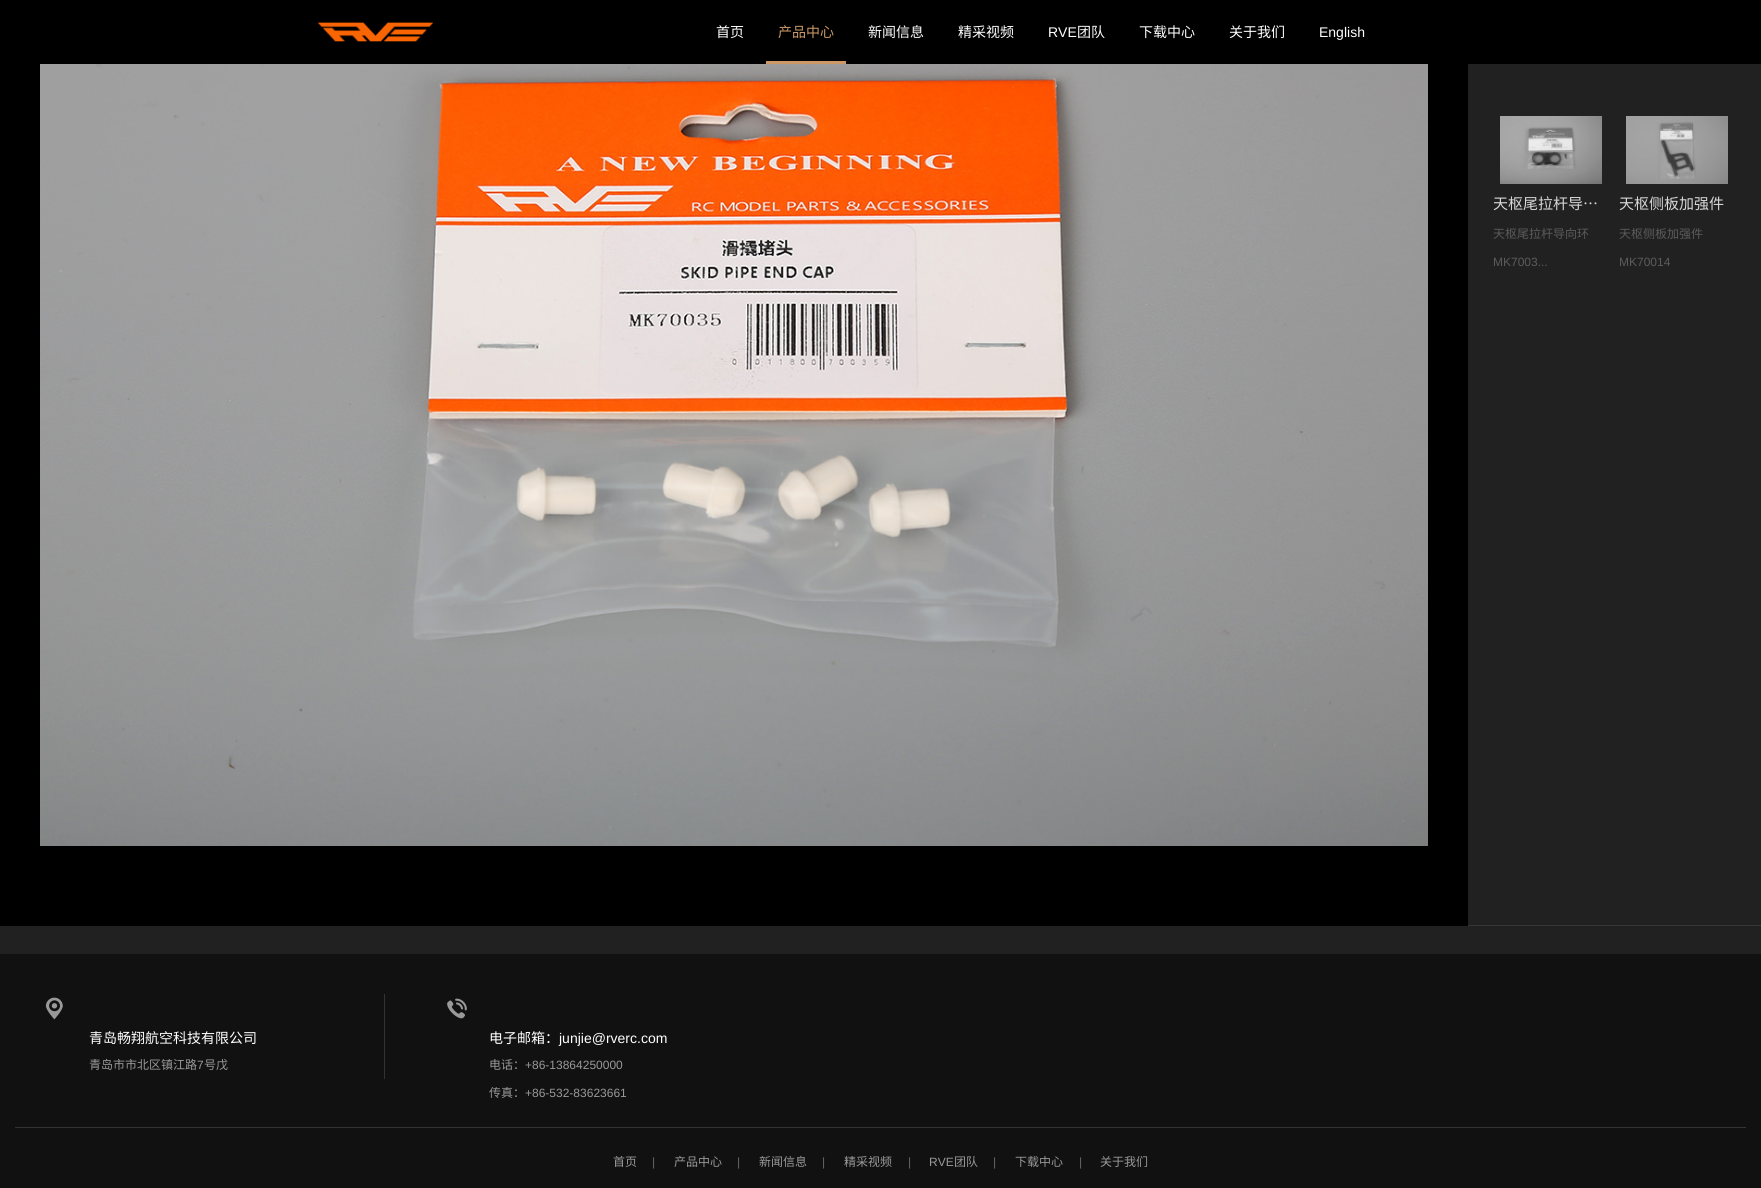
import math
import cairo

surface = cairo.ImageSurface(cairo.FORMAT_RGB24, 1761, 1188)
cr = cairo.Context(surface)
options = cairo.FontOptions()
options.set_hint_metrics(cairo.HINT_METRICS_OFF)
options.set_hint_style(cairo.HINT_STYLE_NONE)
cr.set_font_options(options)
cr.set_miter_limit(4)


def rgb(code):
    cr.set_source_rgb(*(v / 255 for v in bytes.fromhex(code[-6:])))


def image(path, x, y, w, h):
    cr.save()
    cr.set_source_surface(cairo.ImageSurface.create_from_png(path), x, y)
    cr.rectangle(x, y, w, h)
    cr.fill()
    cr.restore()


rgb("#212121")
cr.paint()
rgb("#000000")
cr.rectangle(0, 0, 1761, 64)
cr.fill()
image("img/1.png", 318, 21, 116, 21)
rgb("#cc9966")
cr.rectangle(766, 61, 80, 3)
cr.fill()
rgb("#000000")
cr.rectangle(0, 64, 1468, 862)
cr.fill()
image("img/2.png", 40, 64, 1388, 782)
image("img/3.png", 1500, 116, 102, 68)
image("img/4.png", 1626, 116, 102, 68)
for x, y, w, h, color in [
    (1468, 925, 293, 1, "#373737"),
    (0, 954, 1761, 234, "#111111"),
    (384, 994, 1, 85, "#333333"),
]:
    rgb(color)
    cr.rectangle(x, y, w, h)
    cr.fill()
image("img/5.png", 45, 997, 18, 23)
image("img/6.png", 447, 998, 20, 21)
cr.rectangle(15, 1127, 1731, 1)
cr.fill()
cr.select_font_face("Noto Sans CJK SC")
cr.set_font_size(14)
rgb("#ffffff")
cr.move_to(716, 37)
cr.show_text("首页")
rgb("#cc9966")
cr.move_to(778, 37)
cr.show_text("产品中心")
rgb("#ffffff")
cr.move_to(868, 37)
cr.show_text("新闻信息")
cr.move_to(958, 37)
cr.show_text("精采视频")
cr.select_font_face("Liberation Sans")
cr.move_to(1048, 37)
cr.show_text("RVE")
cr.select_font_face("Noto Sans CJK SC")
for x, y, s in [
    (1077, 37, "团队"),
    (1139, 37, "下载中心"),
    (1229, 37, "关于我们"),
]:
    cr.move_to(x, y)
    cr.show_text(s)
cr.select_font_face("Liberation Sans")
cr.move_to(1319, 37)
cr.show_text("English")
cr.select_font_face("Noto Sans CJK SC")
cr.set_font_size(15)
rgb("#d8d8d8")
cr.move_to(1493, 209)
cr.show_text("天枢尾拉杆导…")
cr.set_font_size(12)
rgb("#5b5b5b")
cr.move_to(1493, 238)
cr.show_text("天枢尾拉杆导向环")
cr.select_font_face("Liberation Sans")
cr.move_to(1493, 266)
cr.show_text("MK7003...")
cr.select_font_face("Noto Sans CJK SC")
cr.set_font_size(15)
rgb("#d8d8d8")
cr.move_to(1619, 209)
cr.show_text("天枢侧板加强件")
cr.set_font_size(12)
rgb("#5b5b5b")
cr.move_to(1619, 238)
cr.show_text("天枢侧板加强件")
cr.select_font_face("Liberation Sans")
cr.move_to(1619, 266)
cr.show_text("MK70014")
cr.select_font_face("Noto Sans CJK SC")
cr.set_font_size(14)
rgb("#ffffff")
cr.move_to(89, 1043)
cr.show_text("青岛畅翔航空科技有限公司")
cr.set_font_size(12)
rgb("#999999")
cr.move_to(89, 1069)
cr.show_text("青岛市市北区镇江路")
cr.select_font_face("Liberation Sans")
cr.move_to(197, 1069)
cr.show_text("7")
cr.select_font_face("Noto Sans CJK SC")
cr.move_to(204, 1069)
cr.show_text("号戊")
cr.set_font_size(14)
rgb("#ffffff")
cr.move_to(489, 1043)
cr.show_text("电子邮箱：")
cr.select_font_face("Liberation Sans")
cr.move_to(559, 1043)
cr.show_text("junjie@rverc.com")
cr.select_font_face("Noto Sans CJK SC")
cr.set_font_size(12)
rgb("#999999")
cr.move_to(489, 1069)
cr.show_text("电话：")
cr.select_font_face("Liberation Sans")
cr.move_to(525, 1069)
cr.show_text("+86-13864250000")
cr.select_font_face("Noto Sans CJK SC")
cr.move_to(489, 1097)
cr.show_text("传真：")
cr.select_font_face("Liberation Sans")
cr.move_to(525, 1097)
cr.show_text("+86-532-83623661")
cr.select_font_face("Noto Sans CJK SC")
cr.move_to(613, 1166)
cr.show_text("首页")
cr.select_font_face("Liberation Sans")
rgb("#666666")
cr.move_to(652, 1166)
cr.show_text("|")
cr.select_font_face("Noto Sans CJK SC")
rgb("#999999")
cr.move_to(674, 1166)
cr.show_text("产品中心")
cr.select_font_face("Liberation Sans")
rgb("#666666")
cr.move_to(737, 1166)
cr.show_text("|")
cr.select_font_face("Noto Sans CJK SC")
rgb("#999999")
cr.move_to(759, 1166)
cr.show_text("新闻信息")
cr.select_font_face("Liberation Sans")
rgb("#666666")
cr.move_to(822, 1166)
cr.show_text("|")
cr.select_font_face("Noto Sans CJK SC")
rgb("#999999")
cr.move_to(844, 1166)
cr.show_text("精采视频")
cr.select_font_face("Liberation Sans")
rgb("#666666")
cr.move_to(908, 1166)
cr.show_text("|")
rgb("#999999")
cr.move_to(929, 1166)
cr.show_text("RVE")
cr.select_font_face("Noto Sans CJK SC")
cr.move_to(954, 1166)
cr.show_text("团队")
cr.select_font_face("Liberation Sans")
rgb("#666666")
cr.move_to(993, 1166)
cr.show_text("|")
cr.select_font_face("Noto Sans CJK SC")
rgb("#999999")
cr.move_to(1015, 1166)
cr.show_text("下载中心")
cr.select_font_face("Liberation Sans")
rgb("#666666")
cr.move_to(1079, 1166)
cr.show_text("|")
cr.select_font_face("Noto Sans CJK SC")
rgb("#999999")
cr.move_to(1100, 1166)
cr.show_text("关于我们")
surface.write_to_png("page.png")
